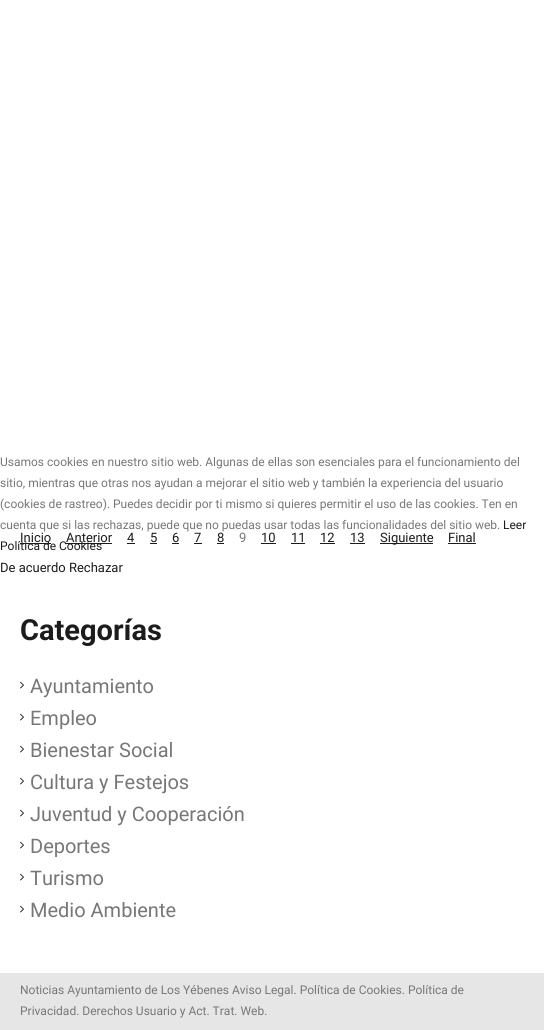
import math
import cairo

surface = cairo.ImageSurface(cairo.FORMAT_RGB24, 544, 1030)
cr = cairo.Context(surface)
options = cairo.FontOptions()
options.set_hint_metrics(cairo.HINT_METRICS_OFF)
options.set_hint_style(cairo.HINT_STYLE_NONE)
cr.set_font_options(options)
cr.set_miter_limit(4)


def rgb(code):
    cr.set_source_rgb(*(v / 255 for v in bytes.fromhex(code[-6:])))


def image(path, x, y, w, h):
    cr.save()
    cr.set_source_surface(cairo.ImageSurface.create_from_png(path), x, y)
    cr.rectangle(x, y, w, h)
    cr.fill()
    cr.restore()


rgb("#ffffff")
cr.paint()
for x, y, w, h, color in [
    (20, 543, 31, 1, "#1c1c1c"),
    (66, 543, 46, 1, "#1c1c1c"),
    (127, 543, 8, 1, "#1c1c1c"),
    (150, 543, 7, 1, "#1c1c1c"),
    (172, 543, 7, 1, "#1c1c1c"),
    (194, 543, 8, 1, "#1c1c1c"),
    (217, 543, 7, 1, "#1c1c1c"),
    (261, 543, 15, 1, "#1c1c1c"),
    (291, 543, 14, 1, "#1c1c1c"),
    (320, 543, 15, 1, "#1c1c1c"),
    (350, 543, 15, 1, "#1c1c1c"),
    (380, 543, 53, 1, "#1c1c1c"),
    (448, 543, 28, 1, "#1c1c1c"),
]:
    rgb(color)
    cr.rectangle(x, y, w, h)
    cr.fill()
image("img/1.png", 20, 681, 4, 8)
image("img/1.png", 20, 713, 4, 8)
image("img/1.png", 20, 745, 4, 8)
image("img/1.png", 20, 777, 4, 8)
image("img/1.png", 20, 809, 4, 8)
image("img/1.png", 20, 841, 4, 8)
image("img/1.png", 20, 873, 4, 8)
image("img/1.png", 20, 905, 4, 8)
rgb("#e6e6e6")
cr.rectangle(0, 973, 544, 57)
cr.fill()
cr.select_font_face("Roboto")
cr.set_font_size(12)
rgb("#777777")
for x, y, s in [
    (0, 466, "Usamos cookies en nuestro sitio web. Algunas de ellas son esenciales para el funcionamiento del"),
    (0, 487, "sitio, mientras que otras nos ayudan a mejorar el sitio web y también la experiencia del usuario"),
    (0, 508, "(cookies de rastreo). Puedes decidir por ti mismo si quieres permitir el uso de las cookies. Ten en"),
    (0, 529, "cuenta que si las rechazas, puede que no puedas usar todas las funcionalidades del sitio web."),
]:
    cr.move_to(x, y)
    cr.show_text(s)
rgb("#1c1c1c")
cr.move_to(503, 529)
cr.show_text("Leer")
cr.move_to(0, 550)
cr.show_text("Política de Cookies")
cr.set_font_size(13)
for x, y, s in [
    (0, 572, "De acuerdo Rechazar"),
    (20, 542, "Inicio"),
    (66, 542, "Anterior"),
    (127, 542, "4"),
    (150, 542, "5"),
    (172, 542, "6"),
    (194, 542, "7"),
    (217, 542, "8"),
]:
    cr.move_to(x, y)
    cr.show_text(s)
rgb("#777777")
cr.move_to(239, 542)
cr.show_text("9")
rgb("#1c1c1c")
for x, y, s in [
    (261, 542, "10"),
    (291, 542, "11"),
    (320, 542, "12"),
    (350, 542, "13"),
    (380, 542, "Siguiente"),
    (448, 542, "Final"),
]:
    cr.move_to(x, y)
    cr.show_text(s)
cr.select_font_face("Roboto", cairo.FONT_SLANT_NORMAL, cairo.FONT_WEIGHT_BOLD)
cr.set_font_size(29)
cr.move_to(20, 640)
cr.show_text("Categorías")
cr.select_font_face("Roboto")
cr.set_font_size(20)
rgb("#777777")
for x, y, s in [
    (30, 693, "Ayuntamiento"),
    (30, 725, "Empleo"),
    (30, 757, "Bienestar Social"),
    (30, 789, "Cultura y Festejos"),
    (30, 821, "Juventud y Cooperación"),
    (30, 853, "Deportes"),
    (30, 885, "Turismo"),
    (30, 917, "Medio Ambiente"),
]:
    cr.move_to(x, y)
    cr.show_text(s)
cr.set_font_size(12)
cr.move_to(20, 994)
cr.show_text("Noticias Ayuntamiento de Los Yébenes Aviso Legal. Política de Cookies. Política de")
cr.move_to(20, 1015)
cr.show_text("Privacidad. Derechos Usuario y Act. Trat. Web.")
surface.write_to_png("page.png")
